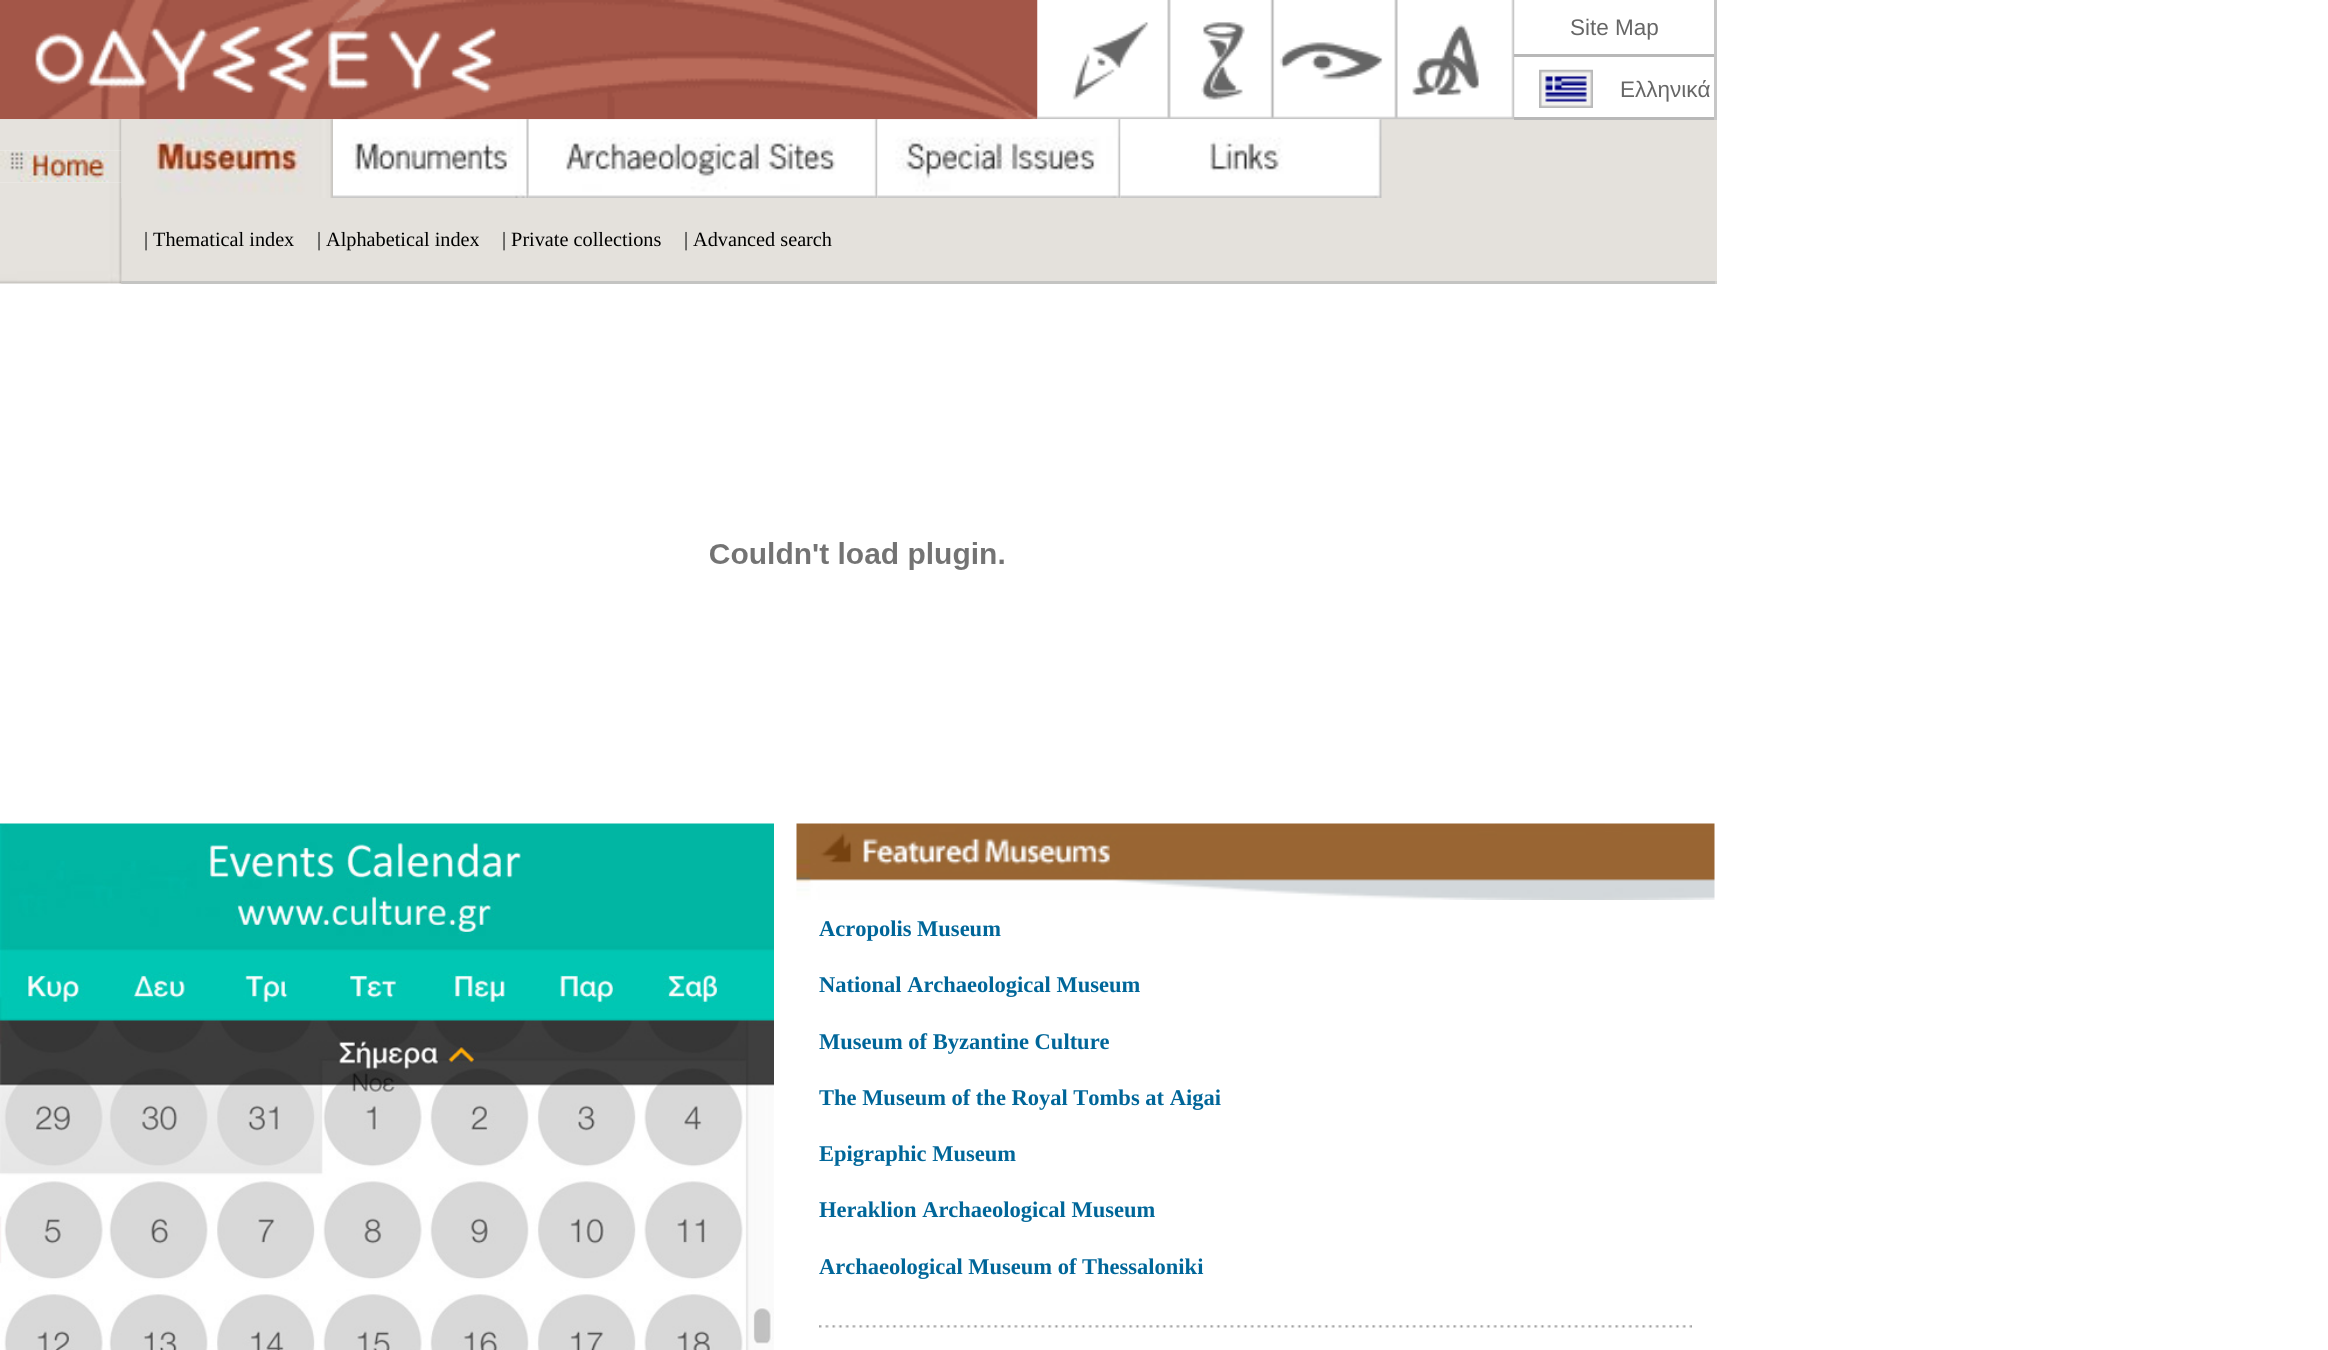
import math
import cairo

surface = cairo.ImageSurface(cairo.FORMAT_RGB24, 2328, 1350)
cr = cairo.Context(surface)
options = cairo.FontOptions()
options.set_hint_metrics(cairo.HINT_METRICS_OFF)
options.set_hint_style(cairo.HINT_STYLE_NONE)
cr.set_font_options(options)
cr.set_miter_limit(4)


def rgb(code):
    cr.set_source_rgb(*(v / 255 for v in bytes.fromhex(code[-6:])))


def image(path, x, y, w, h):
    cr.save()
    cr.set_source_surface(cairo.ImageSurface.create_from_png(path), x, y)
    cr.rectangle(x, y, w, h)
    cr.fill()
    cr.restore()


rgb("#ffffff")
cr.paint()
rgb("#e4e1dc")
cr.rectangle(1381, 119, 336, 79)
cr.fill()
image("img/2.png", 1037, 0, 478, 120)
image("img/1.png", 0, 0, 1038, 120)
rgb("#b8b8b8")
cr.rectangle(1514, 54, 201, 3)
cr.fill()
image("img/3.png", 1539, 69, 54, 39)
cr.rectangle(1514, 117, 201, 3)
cr.fill()
rgb("#c7c7c7")
cr.rectangle(1714, 0, 3, 120)
cr.fill()
image("img/7.png", 121, 119, 212, 79)
image("img/4.png", 0, 119, 122, 32)
image("img/5.png", 0, 150, 122, 33)
rgb("#e4e1dc")
cr.rectangle(121, 198, 1596, 83)
cr.fill()
rgb("#d2d1cd")
cr.rectangle(121, 281, 1596, 3)
cr.fill()
image("img/6.png", 0, 182, 122, 102)
image("img/8.png", 333, 119, 196, 79)
image("img/9.png", 528, 119, 350, 79)
image("img/10.png", 877, 119, 244, 79)
image("img/11.png", 1120, 119, 262, 79)
rgb("#c4c4c2")
cr.rectangle(122, 281, 1593, 3)
cr.fill()
image("img/12.png", 710, 542, 294, 28)
image("img/13.png", 0, 823, 774, 527)
image("img/14.png", 796, 823, 919, 77)
image("img/15.png", 819, 1325, 873, 3)
cr.select_font_face("Liberation Sans")
cr.set_font_size(22.5)
rgb("#666666")
cr.move_to(1570, 35)
cr.show_text("Site Map")
cr.move_to(1620, 97)
cr.show_text("Ελληνικά")
cr.select_font_face("Liberation Serif")
cr.set_font_size(20.25)
rgb("#000000")
for x, y, s in [
    (144, 246, "| Thematical index"),
    (317, 246, "| Alphabetical index"),
    (502, 246, "| Private collections"),
    (684, 246, "| Advanced search"),
]:
    cr.move_to(x, y)
    cr.show_text(s)
cr.select_font_face("Liberation Serif", cairo.FONT_SLANT_NORMAL, cairo.FONT_WEIGHT_BOLD)
cr.set_font_size(22.5)
rgb("#006699")
for x, y, s in [
    (819, 936, "Acropolis Museum"),
    (819, 992, "National Archaeological Museum"),
    (819, 1049, "Museum of Byzantine Culture"),
    (819, 1105, "The Museum of the Royal Tombs at Aigai"),
    (819, 1161, "Epigraphic Museum"),
    (819, 1217, "Heraklion Archaeological Museum"),
    (819, 1274, "Archaeological Museum of Thessaloniki"),
]:
    cr.move_to(x, y)
    cr.show_text(s)
surface.write_to_png("page.png")
